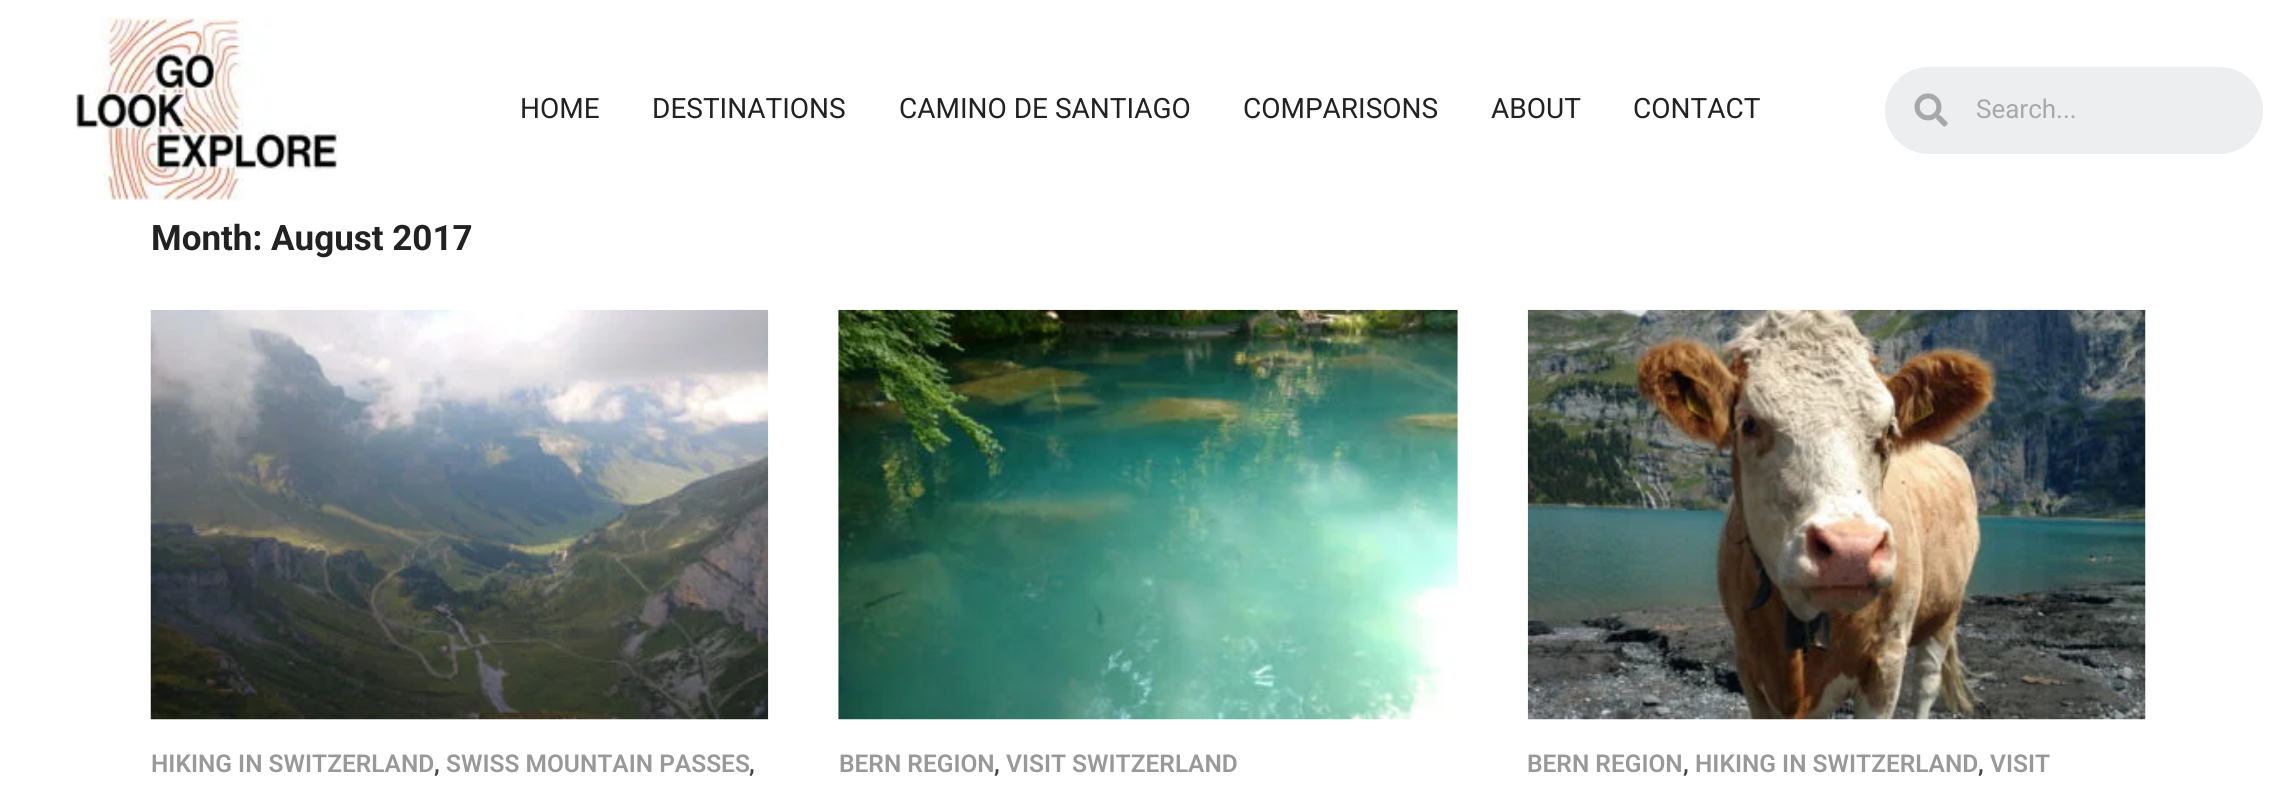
import math
import cairo

surface = cairo.ImageSurface(cairo.FORMAT_RGB24, 2296, 801)
cr = cairo.Context(surface)
options = cairo.FontOptions()
options.set_hint_metrics(cairo.HINT_METRICS_OFF)
options.set_hint_style(cairo.HINT_STYLE_NONE)
cr.set_font_options(options)
cr.set_miter_limit(4)


def rgb(code):
    cr.set_source_rgb(*(v / 255 for v in bytes.fromhex(code[-6:])))


def rrect(x, y, w, h, r):
    cr.new_sub_path()
    for i, (u, v) in enumerate([(x + w - r, y + h - r), (x + r, y + h - r), (x + r, y + r), (x + w - r, y + r)]):
        cr.arc(u, v, r, i * math.pi / 2, (i + 1) * math.pi / 2)
    cr.close_path()


def image(path, x, y, w, h):
    cr.save()
    cr.set_source_surface(cairo.ImageSurface.create_from_png(path), x, y)
    cr.rectangle(x, y, w, h)
    cr.fill()
    cr.restore()


rgb("#ffffff")
cr.paint()
image("img/1.png", 75, 17, 263, 184)
rgb("#eceeef")
rrect(1885, 67, 378, 87, 43.5)
cr.fill()
image("img/2.png", 1914, 93, 34, 34)
image("img/3.png", 150, 309, 619, 411)
image("img/4.png", 838, 309, 620, 411)
image("img/5.png", 1527, 309, 619, 411)
cr.select_font_face("Roboto")
cr.set_font_size(28)
rgb("#222222")
for x, y, s in [
    (520, 118, "HOME"),
    (652, 118, "DESTINATIONS"),
    (899, 118, "CAMINO DE SANTIAGO"),
    (1243, 118, "COMPARISONS"),
    (1491, 118, "ABOUT"),
    (1633, 118, "CONTACT"),
]:
    cr.move_to(x, y)
    cr.show_text(s)
cr.set_font_size(26)
rgb("#a8a8a9")
cr.move_to(1976, 118)
cr.show_text("Search...")
cr.select_font_face("Roboto", cairo.FONT_SLANT_NORMAL, cairo.FONT_WEIGHT_BOLD)
cr.set_font_size(35)
rgb("#222222")
cr.move_to(151, 250)
cr.show_text("Month: August 2017")
cr.select_font_face("Roboto SemiBold")
cr.set_font_size(24.5)
rgb("#999999")
cr.move_to(151, 772)
cr.show_text("HIKING IN SWITZERLAND")
rgb("#444444")
cr.move_to(434, 772)
cr.show_text(",")
rgb("#999999")
cr.move_to(446, 772)
cr.show_text("SWISS MOUNTAIN PASSES")
rgb("#444444")
cr.move_to(749, 772)
cr.show_text(",")
rgb("#999999")
cr.move_to(839, 772)
cr.show_text("BERN REGION")
rgb("#444444")
cr.move_to(994, 772)
cr.show_text(",")
rgb("#999999")
cr.move_to(1006, 772)
cr.show_text("VISIT SWITZERLAND")
cr.move_to(1527, 772)
cr.show_text("BERN REGION")
rgb("#444444")
cr.move_to(1683, 772)
cr.show_text(",")
rgb("#999999")
cr.move_to(1695, 772)
cr.show_text("HIKING IN SWITZERLAND")
rgb("#444444")
cr.move_to(1978, 772)
cr.show_text(",")
rgb("#999999")
cr.move_to(1990, 772)
cr.show_text("VISIT")
surface.write_to_png("page.png")
